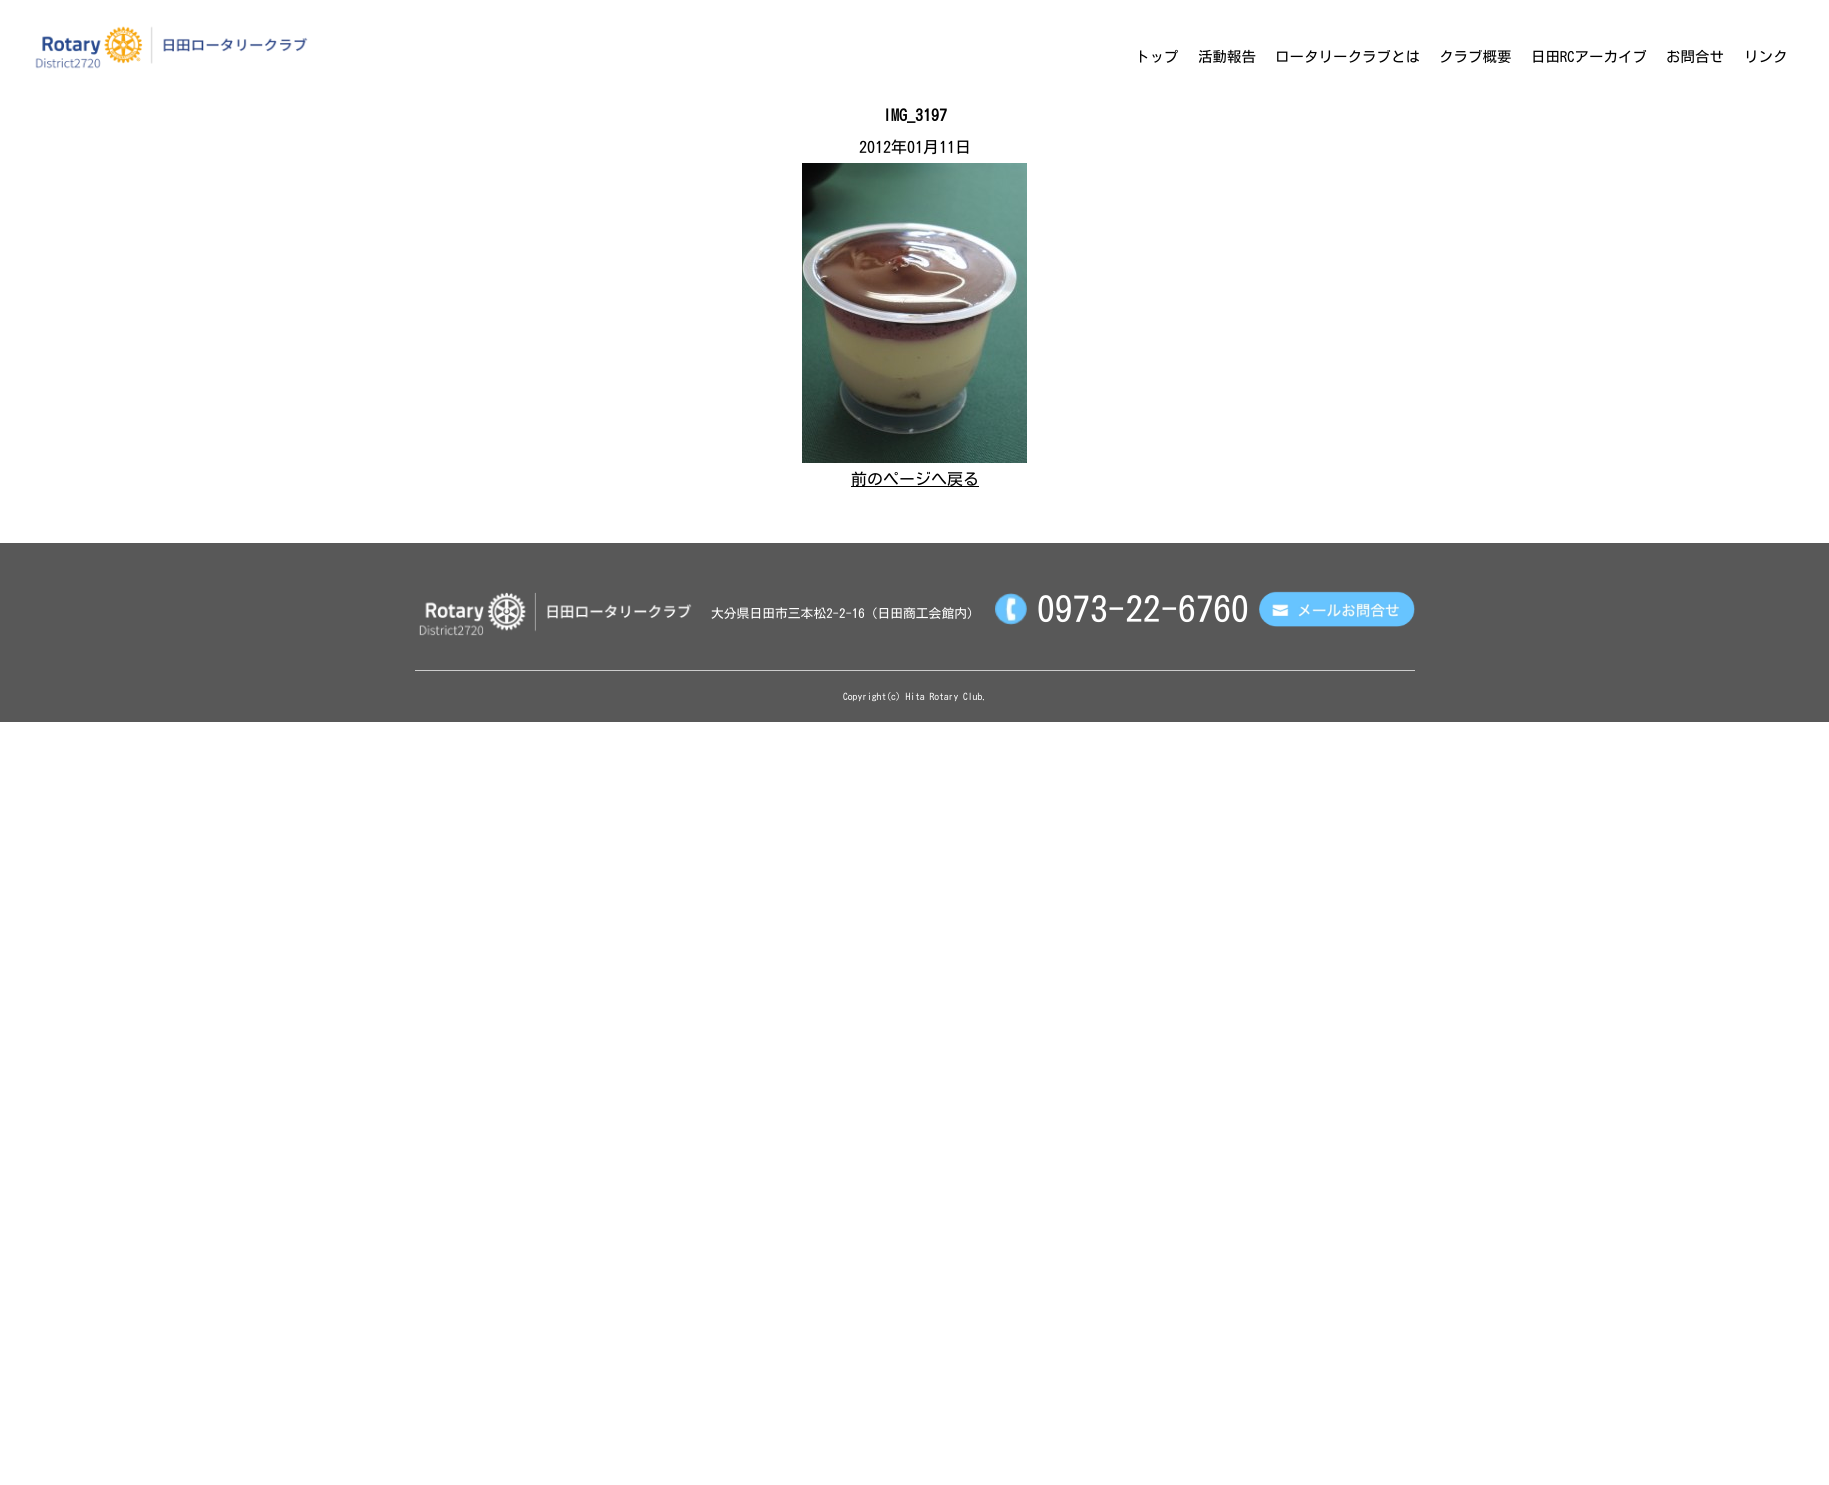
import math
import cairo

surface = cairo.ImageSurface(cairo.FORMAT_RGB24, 1829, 1485)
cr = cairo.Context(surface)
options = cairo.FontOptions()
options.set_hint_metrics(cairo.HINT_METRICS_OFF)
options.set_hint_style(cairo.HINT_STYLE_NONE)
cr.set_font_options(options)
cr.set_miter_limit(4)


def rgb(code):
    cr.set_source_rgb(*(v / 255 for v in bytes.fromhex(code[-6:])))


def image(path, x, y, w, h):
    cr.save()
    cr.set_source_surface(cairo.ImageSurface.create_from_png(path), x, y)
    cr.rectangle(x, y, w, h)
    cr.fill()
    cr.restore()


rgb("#ffffff")
cr.paint()
image("img/1.png", 35, 26, 273, 43)
image("img/2.png", 802, 163, 225, 300)
rgb("#000000")
cr.rectangle(851, 486, 128, 1)
cr.fill()
rgb("#585858")
cr.rectangle(0, 543, 1829, 179)
cr.fill()
image("img/3.png", 419, 592, 273, 44)
image("img/4.png", 995, 593, 32, 32)
image("img/5.png", 1259, 591, 156, 36)
rgb("#cccccc")
cr.rectangle(415, 670, 1000, 1)
cr.fill()
cr.select_font_face("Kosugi")
cr.set_font_size(14.5)
rgb("#000000")
for x, y, s in [
    (1135, 62, "トップ"),
    (1198, 62, "活動報告"),
    (1275, 62, "ロータリークラブとは"),
    (1439, 62, "クラブ概要"),
    (1531, 62, "日田RCアーカイブ"),
    (1666, 62, "お問合せ"),
    (1744, 62, "リンク"),
]:
    cr.move_to(x, y)
    cr.show_text(s)
cr.select_font_face("Kosugi", cairo.FONT_SLANT_NORMAL, cairo.FONT_WEIGHT_BOLD)
cr.set_font_size(16)
cr.move_to(883, 121)
cr.show_text("IMG_3197")
cr.select_font_face("Kosugi")
cr.move_to(859, 153)
cr.show_text("2012年01月11日")
cr.move_to(851, 485)
cr.show_text("前のページへ戻る")
cr.set_font_size(12.8)
rgb("#ffffff")
cr.move_to(711, 618)
cr.show_text("大分県日田市三本松2-2-16（日田商工会館内）")
cr.set_font_size(35.25)
cr.move_to(1037, 622)
cr.show_text("0973-22-6760")
cr.set_font_size(9.6)
cr.move_to(843, 700)
cr.show_text("Copyright(c) Hita Rotary Club.")
surface.write_to_png("page.png")
